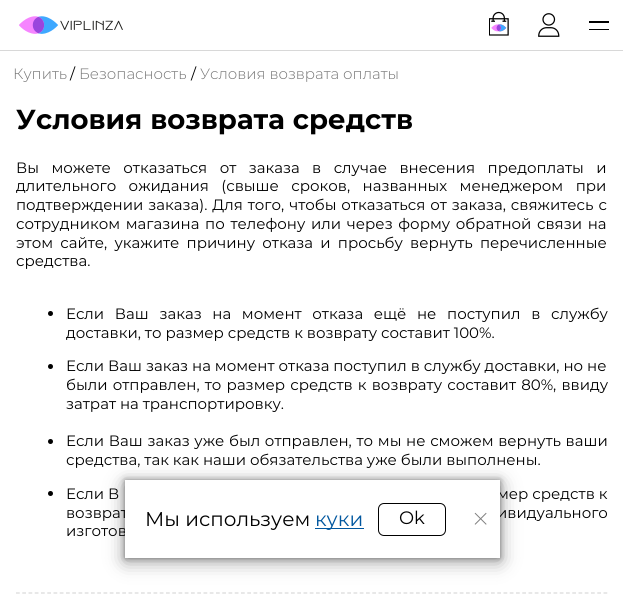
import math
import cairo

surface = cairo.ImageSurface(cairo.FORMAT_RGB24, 623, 601)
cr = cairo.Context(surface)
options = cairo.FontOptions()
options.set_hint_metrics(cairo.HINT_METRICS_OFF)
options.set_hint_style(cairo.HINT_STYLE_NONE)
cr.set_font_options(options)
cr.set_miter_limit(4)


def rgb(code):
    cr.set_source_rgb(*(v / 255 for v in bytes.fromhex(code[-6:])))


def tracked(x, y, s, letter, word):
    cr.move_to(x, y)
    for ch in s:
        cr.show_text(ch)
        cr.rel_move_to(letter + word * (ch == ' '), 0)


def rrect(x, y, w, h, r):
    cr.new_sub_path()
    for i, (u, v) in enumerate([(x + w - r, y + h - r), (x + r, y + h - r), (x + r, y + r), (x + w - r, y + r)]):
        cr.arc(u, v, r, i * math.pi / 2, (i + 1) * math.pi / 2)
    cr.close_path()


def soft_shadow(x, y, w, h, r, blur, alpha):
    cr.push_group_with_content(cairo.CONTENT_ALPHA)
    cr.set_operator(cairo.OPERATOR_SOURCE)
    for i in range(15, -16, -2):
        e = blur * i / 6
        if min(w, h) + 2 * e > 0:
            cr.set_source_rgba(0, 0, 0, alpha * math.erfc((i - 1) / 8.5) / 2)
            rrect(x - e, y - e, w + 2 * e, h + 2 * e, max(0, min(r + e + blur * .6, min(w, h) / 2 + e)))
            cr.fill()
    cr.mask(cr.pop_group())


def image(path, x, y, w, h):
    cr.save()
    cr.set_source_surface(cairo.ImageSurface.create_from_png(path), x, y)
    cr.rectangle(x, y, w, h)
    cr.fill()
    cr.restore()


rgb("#ffffff")
cr.paint()
rgb("#d8d8d8")
cr.rectangle(0, 50, 623, 1)
cr.fill()
image("img/1.png", 19, 16, 104, 18)
image("img/2.png", 489, 11, 20, 25)
image("img/3.png", 538, 13, 22, 24)
rgb("#000000")
cr.rectangle(589, 21, 20, 2)
cr.fill()
cr.rectangle(589, 29, 20, 1)
cr.fill()
cr.arc(50.5, 313.5, 2.5, 0, 2 * math.pi)
cr.fill()
cr.arc(50.5, 366.5, 2.5, 0, 2 * math.pi)
cr.fill()
cr.arc(50.5, 441.5, 2.5, 0, 2 * math.pi)
cr.fill()
cr.arc(50.5, 493.5, 2.5, 0, 2 * math.pi)
cr.fill()
cr.new_path()
cr.move_to(16, 593)
cr.line_to(607.5, 593)
rgb("#d9d9d9")
cr.set_line_width(1.2)
cr.set_dash([3.75, 2.5])
cr.stroke()
rgb("#000000")
soft_shadow(125, 480, 375, 78, 0, 3, 0.4)
soft_shadow(125, 484, 375, 77, 0, 9.5, 0.4)
cr.select_font_face("Montserrat Light")
cr.set_font_size(15)
rgb("#737373")
cr.move_to(13, 79)
cr.show_text("Купить")
cr.select_font_face("Montserrat")
rgb("#000000")
cr.move_to(70, 79)
cr.show_text("/")
cr.select_font_face("Montserrat Light")
rgb("#737373")
cr.move_to(79, 79)
cr.show_text("Безопасность")
cr.select_font_face("Montserrat")
rgb("#000000")
cr.move_to(191, 79)
cr.show_text("/")
cr.select_font_face("Montserrat Light")
rgb("#737373")
cr.move_to(200, 79)
cr.show_text("Условия возврата оплаты")
cr.select_font_face("Montserrat", cairo.FONT_SLANT_NORMAL, cairo.FONT_WEIGHT_BOLD)
cr.set_font_size(27.5)
rgb("#000000")
cr.move_to(16, 129)
cr.show_text("Условия возврата средств")
cr.select_font_face("Montserrat")
cr.set_font_size(15)
tracked(16, 173, "Вы можете отказаться от заказа в случае внесения предоплаты и", 0, 8.5)
tracked(16, 191, "длительного ожидания (свыше сроков, названных менеджером при", 0, 8.5)
tracked(16, 210, "подтверждении заказа). Для того, чтобы отказаться от заказа, свяжитесь с", 0, 1)
tracked(16, 229, "сотрудником магазина по телефону или через форму обратной связи на", 0, 1.75)
tracked(16, 248, "этом сайте, укажите причину отказа и просьбу вернуть перечисленные", 0, 3.25)
cr.move_to(16, 266)
cr.show_text("средства.")
tracked(66, 319, "Если Ваш заказ на момент отказа ещё не поступил в службу", 0, 6.75)
cr.move_to(66, 338)
cr.show_text("доставки, то размер средств к возврату составит 100%.")
cr.move_to(66, 371)
cr.show_text("Если Ваш заказ на момент отказа поступил в службу доставки, но не")
tracked(66, 390, "были отправлен, то размер средств к возврату составит 80%, ввиду", 0, 1.25)
cr.move_to(66, 409)
cr.show_text("затрат на транспортировку.")
tracked(66, 446, "Если Ваш заказ уже был отправлен, то мы не сможем вернуть ваши", 0, 0.75)
for x, y, s in [
    (66, 465, "средства, так как наши обязательства уже были выполнены."),
    (66, 499, "Если В"),
    (497, 499, "мер средств к"),
    (66, 518, "возврат"),
    (497, 518, "ивидуального"),
    (66, 536, "изготов"),
]:
    cr.move_to(x, y)
    cr.show_text(s)
rgb("#ffffff")
cr.rectangle(125, 480, 375, 78)
cr.fill()
cr.set_font_size(20)
rgb("#000000")
cr.move_to(145, 526)
cr.show_text("Мы используем")
rgb("#01579f")
cr.rectangle(315, 528, 49, 1)
cr.fill()
cr.move_to(315, 526)
cr.show_text("куки")
rrect(378.5, 503.5, 67, 32, 5.5)
rgb("#000000")
cr.set_line_width(1)
cr.set_dash([])
cr.stroke()
cr.set_font_size(18)
cr.move_to(399, 524)
cr.show_text("Ok")
image("img/4.png", 474, 512, 13, 13)
surface.write_to_png("page.png")
